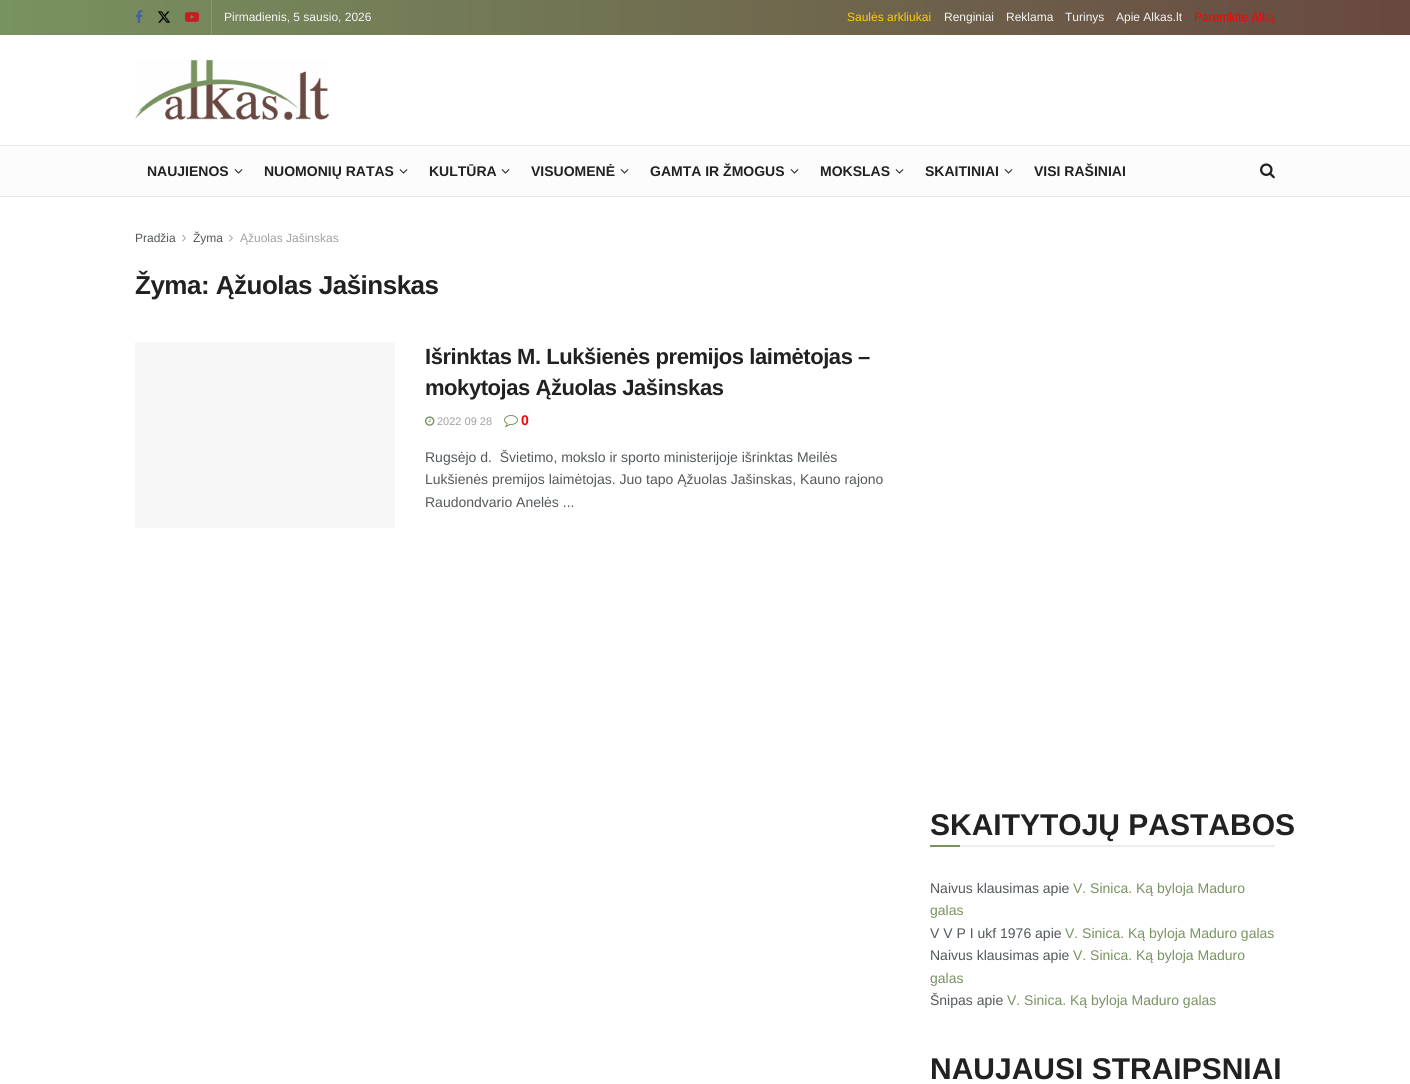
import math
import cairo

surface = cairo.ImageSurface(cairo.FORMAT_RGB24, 1410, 1084)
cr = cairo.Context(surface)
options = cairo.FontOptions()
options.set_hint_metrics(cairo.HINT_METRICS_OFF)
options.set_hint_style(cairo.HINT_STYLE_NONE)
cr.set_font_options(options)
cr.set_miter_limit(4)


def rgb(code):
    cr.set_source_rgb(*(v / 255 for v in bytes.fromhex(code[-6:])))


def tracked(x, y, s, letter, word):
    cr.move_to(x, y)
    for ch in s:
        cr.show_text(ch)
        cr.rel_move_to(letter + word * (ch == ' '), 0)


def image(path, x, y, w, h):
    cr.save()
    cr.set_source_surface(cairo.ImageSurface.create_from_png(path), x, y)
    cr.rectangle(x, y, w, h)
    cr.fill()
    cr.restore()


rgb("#ffffff")
cr.paint()
gradient = cairo.LinearGradient(0, 18, 1410, 17)
gradient.add_color_stop_rgba(0, 0.471, 0.573, 0.376, 1)
gradient.add_color_stop_rgba(1, 0.408, 0.282, 0.251, 1)
cr.set_source(gradient)
cr.rectangle(0, 0, 1410, 35)
cr.fill()
gradient = cairo.LinearGradient(0, 18, 1410, 17)
gradient.add_color_stop_rgba(0, 0.549, 0.635, 0.471, 1)
gradient.add_color_stop_rgba(1, 0.498, 0.388, 0.365, 1)
cr.set_source(gradient)
cr.rectangle(211, 0, 1, 35)
cr.fill()
image("img/1.png", 135, 10, 8, 13)
image("img/2.png", 157, 11, 14, 12)
image("img/3.png", 185, 12, 14, 10)
image("img/4.png", 135, 60, 194, 60)
for x, y, w, h, color in [
    (0, 146, 1410, 50, "#fcfcfc"),
    (0, 145, 1410, 1, "#e8e8e8"),
    (0, 196, 1410, 1, "#e8e8e8"),
]:
    rgb(color)
    cr.rectangle(x, y, w, h)
    cr.fill()
image("img/5.png", 234, 169, 9, 5)
image("img/5.png", 399, 169, 9, 5)
image("img/5.png", 501, 169, 9, 5)
image("img/5.png", 620, 169, 9, 5)
image("img/5.png", 790, 169, 9, 5)
image("img/5.png", 895, 169, 9, 5)
image("img/5.png", 1004, 169, 9, 5)
image("img/6.png", 1260, 163, 15, 16)
image("img/7.png", 182, 234, 4, 8)
image("img/7.png", 229, 234, 4, 8)
rgb("#f7f7f7")
cr.rectangle(135, 342, 260, 186)
cr.fill()
image("img/8.png", 425, 416, 10, 10)
image("img/9.png", 504, 415, 14, 12)
rgb("#eeeeee")
cr.rectangle(960, 845, 315, 2)
cr.fill()
rgb("#789260")
cr.rectangle(930, 845, 30, 2)
cr.fill()
cr.select_font_face("Liberation Sans")
cr.set_font_size(12)
rgb("#f5f5f5")
cr.move_to(224, 21)
cr.show_text("Pirmadienis, 5 sausio, 2026")
rgb("#ffcc00")
cr.move_to(847, 21)
cr.show_text("Saulės arkliukai")
rgb("#f5f5f5")
for x, y, s in [
    (944, 21, "Renginiai"),
    (1006, 21, "Reklama"),
    (1065, 21, "Turinys"),
    (1116, 21, "Apie Alkas.lt"),
]:
    cr.move_to(x, y)
    cr.show_text(s)
rgb("#ff0000")
cr.move_to(1194, 21)
cr.show_text("Paremkite Alką")
cr.select_font_face("Liberation Sans", cairo.FONT_SLANT_NORMAL, cairo.FONT_WEIGHT_BOLD)
cr.set_font_size(14)
rgb("#212121")
for x, y, s in [
    (147, 176, "NAUJIENOS"),
    (264, 176, "NUOMONIŲ RATAS"),
    (429, 176, "KULTŪRA"),
    (531, 176, "VISUOMENĖ"),
    (650, 176, "GAMTA IR ŽMOGUS"),
    (820, 176, "MOKSLAS"),
    (925, 176, "SKAITINIAI"),
    (1034, 176, "VISI RAŠINIAI"),
]:
    cr.move_to(x, y)
    cr.show_text(s)
cr.select_font_face("Liberation Sans")
cr.set_font_size(12)
rgb("#53585c")
cr.move_to(135, 242)
cr.show_text("Pradžia")
cr.move_to(193, 242)
cr.show_text("Žyma")
rgb("#a0a0a0")
cr.move_to(240, 242)
cr.show_text("Ąžuolas Jašinskas")
cr.select_font_face("Liberation Sans", cairo.FONT_SLANT_NORMAL, cairo.FONT_WEIGHT_BOLD)
cr.set_font_size(26)
rgb("#212121")
tracked(135, 294, "Žyma: Ąžuolas Jašinskas", -0.5, 0)
cr.set_font_size(22)
tracked(425, 364, "Išrinktas M. Lukšienės premijos laimėtojas –", -0.45, 0)
tracked(425, 395, "mokytojas Ąžuolas Jašinskas", -0.45, 0)
cr.select_font_face("Liberation Sans")
cr.set_font_size(11)
rgb("#a0a0a0")
cr.move_to(437, 425)
cr.show_text("2022 09 28")
cr.select_font_face("Liberation Sans", cairo.FONT_SLANT_NORMAL, cairo.FONT_WEIGHT_BOLD)
cr.set_font_size(14)
rgb("#ff0000")
cr.move_to(521, 425)
cr.show_text("0")
cr.select_font_face("Liberation Sans")
rgb("#53585c")
for x, y, s in [
    (425, 462, "Rugsėjo d.  Švietimo, mokslo ir sporto ministerijoje išrinktas Meilės"),
    (425, 484, "Lukšienės premijos laimėtojas. Juo tapo Ąžuolas Jašinskas, Kauno rajono"),
    (425, 507, "Raudondvario Anelės ..."),
]:
    cr.move_to(x, y)
    cr.show_text(s)
cr.select_font_face("Liberation Sans", cairo.FONT_SLANT_NORMAL, cairo.FONT_WEIGHT_BOLD)
cr.set_font_size(30)
rgb("#212121")
cr.move_to(930, 835)
cr.show_text("SKAITYTOJŲ PASTABOS")
cr.select_font_face("Liberation Sans")
cr.set_font_size(14)
rgb("#53585c")
cr.move_to(930, 893)
cr.show_text("Naivus klausimas apie")
rgb("#789260")
cr.move_to(1073, 893)
cr.show_text("V. Sinica. Ką byloja Maduro")
cr.move_to(930, 915)
cr.show_text("galas")
rgb("#53585c")
cr.move_to(930, 938)
cr.show_text("V V P I ukf 1976 apie")
rgb("#789260")
cr.move_to(1065, 938)
cr.show_text("V. Sinica. Ką byloja Maduro galas")
rgb("#53585c")
cr.move_to(930, 960)
cr.show_text("Naivus klausimas apie")
rgb("#789260")
cr.move_to(1073, 960)
cr.show_text("V. Sinica. Ką byloja Maduro")
cr.move_to(930, 983)
cr.show_text("galas")
rgb("#53585c")
cr.move_to(930, 1005)
cr.show_text("Šnipas apie")
rgb("#789260")
cr.move_to(1007, 1005)
cr.show_text("V. Sinica. Ką byloja Maduro galas")
cr.select_font_face("Liberation Sans", cairo.FONT_SLANT_NORMAL, cairo.FONT_WEIGHT_BOLD)
cr.set_font_size(30)
rgb("#212121")
cr.move_to(930, 1079)
cr.show_text("NAUJAUSI STRAIPSNIAI")
surface.write_to_png("page.png")
